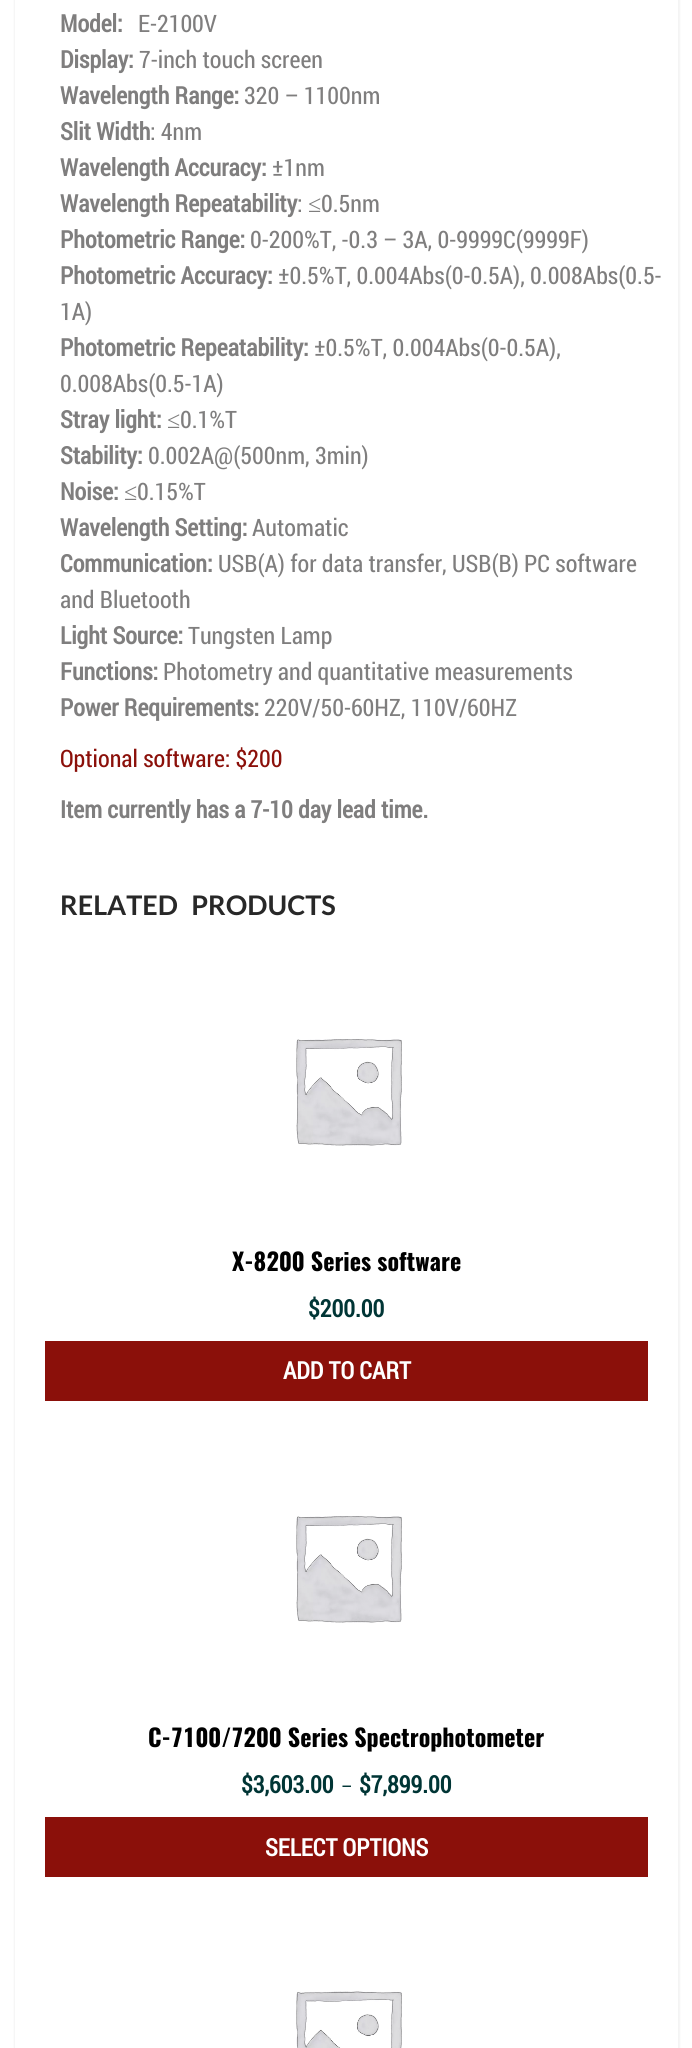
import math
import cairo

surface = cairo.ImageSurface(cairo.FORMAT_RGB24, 692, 2048)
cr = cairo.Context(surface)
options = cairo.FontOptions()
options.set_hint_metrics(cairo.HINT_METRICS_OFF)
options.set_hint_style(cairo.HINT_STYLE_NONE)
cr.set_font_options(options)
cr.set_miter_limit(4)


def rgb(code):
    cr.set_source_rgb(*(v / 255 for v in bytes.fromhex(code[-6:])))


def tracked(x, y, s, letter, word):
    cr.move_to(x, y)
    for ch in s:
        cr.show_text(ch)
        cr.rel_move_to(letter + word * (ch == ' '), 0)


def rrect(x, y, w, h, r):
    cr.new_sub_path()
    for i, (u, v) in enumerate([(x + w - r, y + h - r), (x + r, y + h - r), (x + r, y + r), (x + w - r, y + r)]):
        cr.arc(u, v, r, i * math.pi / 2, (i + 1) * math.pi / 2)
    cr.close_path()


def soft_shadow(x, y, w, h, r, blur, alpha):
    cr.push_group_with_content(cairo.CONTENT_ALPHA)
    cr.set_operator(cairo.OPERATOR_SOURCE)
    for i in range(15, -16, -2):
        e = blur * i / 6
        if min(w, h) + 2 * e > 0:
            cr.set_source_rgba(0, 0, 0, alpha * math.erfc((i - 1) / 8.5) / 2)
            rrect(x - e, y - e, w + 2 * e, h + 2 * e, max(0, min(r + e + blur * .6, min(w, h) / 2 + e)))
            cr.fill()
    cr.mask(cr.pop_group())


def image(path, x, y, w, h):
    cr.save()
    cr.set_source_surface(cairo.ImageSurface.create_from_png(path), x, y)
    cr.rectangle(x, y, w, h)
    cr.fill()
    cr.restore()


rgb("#ffffff")
cr.paint()
cr.save()
cr.set_fill_rule(cairo.FILL_RULE_EVEN_ODD)
cr.new_path()
cr.move_to(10, 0)
cr.line_to(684, 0)
cr.line_to(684, 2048)
cr.line_to(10, 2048)
cr.close_path()
cr.move_to(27, -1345)
cr.line_to(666, -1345)
cr.curve_to(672.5, -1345, 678, -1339.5, 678, -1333)
cr.line_to(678, 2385)
cr.curve_to(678, 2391.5, 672.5, 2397, 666, 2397)
cr.line_to(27, 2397)
cr.curve_to(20.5, 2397, 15, 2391.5, 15, 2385)
cr.line_to(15, -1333)
cr.curve_to(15, -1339.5, 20.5, -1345, 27, -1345)
cr.close_path()
cr.clip()
rgb("#000000")
soft_shadow(14, -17, 666, 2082, 14, 1, 0.05)
cr.restore()
image("img/1.png", 296, 1039, 106, 107)
rgb("#8b100a")
cr.rectangle(45, 1341, 603, 60)
cr.fill()
image("img/1.png", 296, 1516, 106, 107)
cr.rectangle(45, 1817, 603, 60)
cr.fill()
image("img/2.png", 296, 1991, 106, 57)
cr.select_font_face("Roboto Condensed", cairo.FONT_SLANT_NORMAL, cairo.FONT_WEIGHT_BOLD)
cr.set_font_size(24)
rgb("#7f7e7e")
cr.move_to(60, 32)
cr.show_text("Model:")
cr.select_font_face("Roboto Condensed")
cr.move_to(138, 32)
cr.show_text("E-2100V")
cr.select_font_face("Roboto Condensed", cairo.FONT_SLANT_NORMAL, cairo.FONT_WEIGHT_BOLD)
cr.move_to(60, 68)
cr.show_text("Display:")
cr.select_font_face("Roboto Condensed")
cr.move_to(139, 68)
cr.show_text("7-inch touch screen")
cr.select_font_face("Roboto Condensed", cairo.FONT_SLANT_NORMAL, cairo.FONT_WEIGHT_BOLD)
cr.move_to(60, 104)
cr.show_text("Wavelength Range:")
cr.select_font_face("Roboto Condensed")
cr.move_to(244, 104)
cr.show_text("320 – 1100nm")
cr.select_font_face("Roboto Condensed", cairo.FONT_SLANT_NORMAL, cairo.FONT_WEIGHT_BOLD)
cr.move_to(60, 140)
cr.show_text("Slit Width")
cr.select_font_face("Roboto Condensed")
cr.move_to(150, 140)
cr.show_text(": 4nm")
cr.select_font_face("Roboto Condensed", cairo.FONT_SLANT_NORMAL, cairo.FONT_WEIGHT_BOLD)
cr.move_to(60, 176)
cr.show_text("Wavelength Accuracy:")
cr.select_font_face("Roboto Condensed")
cr.move_to(272, 176)
cr.show_text("±1nm")
cr.select_font_face("Roboto Condensed", cairo.FONT_SLANT_NORMAL, cairo.FONT_WEIGHT_BOLD)
cr.move_to(60, 212)
cr.show_text("Wavelength Repeatability")
cr.select_font_face("Roboto Condensed")
cr.move_to(297, 212)
cr.show_text(":")
cr.select_font_face("Liberation Serif")
cr.move_to(308, 212)
cr.show_text("≤")
cr.select_font_face("Roboto Condensed")
cr.move_to(321, 212)
cr.show_text("0.5nm")
cr.select_font_face("Roboto Condensed", cairo.FONT_SLANT_NORMAL, cairo.FONT_WEIGHT_BOLD)
cr.move_to(60, 248)
cr.show_text("Photometric Range:")
cr.select_font_face("Roboto Condensed")
cr.move_to(250, 248)
cr.show_text("0-200%T, -0.3 – 3A, 0-9999C(9999F)")
cr.select_font_face("Roboto Condensed", cairo.FONT_SLANT_NORMAL, cairo.FONT_WEIGHT_BOLD)
cr.move_to(60, 284)
cr.show_text("Photometric Accuracy:")
cr.select_font_face("Roboto Condensed")
cr.move_to(278, 284)
cr.show_text("±0.5%T, 0.004Abs(0-0.5A), 0.008Abs(0.5-")
cr.move_to(60, 320)
cr.show_text("1A)")
cr.select_font_face("Roboto Condensed", cairo.FONT_SLANT_NORMAL, cairo.FONT_WEIGHT_BOLD)
cr.move_to(60, 356)
cr.show_text("Photometric Repeatability:")
cr.select_font_face("Roboto Condensed")
cr.move_to(314, 356)
cr.show_text("±0.5%T, 0.004Abs(0-0.5A),")
cr.move_to(60, 392)
cr.show_text("0.008Abs(0.5-1A)")
cr.select_font_face("Roboto Condensed", cairo.FONT_SLANT_NORMAL, cairo.FONT_WEIGHT_BOLD)
cr.move_to(60, 428)
cr.show_text("Stray light:")
cr.select_font_face("Liberation Serif")
cr.move_to(167, 428)
cr.show_text("≤")
cr.select_font_face("Roboto Condensed")
cr.move_to(180, 428)
cr.show_text("0.1%T")
cr.select_font_face("Roboto Condensed", cairo.FONT_SLANT_NORMAL, cairo.FONT_WEIGHT_BOLD)
cr.move_to(60, 464)
cr.show_text("Stability:")
cr.select_font_face("Roboto Condensed")
cr.move_to(148, 464)
cr.show_text("0.002A@(500nm, 3min)")
cr.select_font_face("Roboto Condensed", cairo.FONT_SLANT_NORMAL, cairo.FONT_WEIGHT_BOLD)
cr.move_to(60, 500)
cr.show_text("Noise:")
cr.select_font_face("Liberation Serif")
cr.move_to(124, 500)
cr.show_text("≤")
cr.select_font_face("Roboto Condensed")
cr.move_to(137, 500)
cr.show_text("0.15%T")
cr.select_font_face("Roboto Condensed", cairo.FONT_SLANT_NORMAL, cairo.FONT_WEIGHT_BOLD)
cr.move_to(60, 536)
cr.show_text("Wavelength Setting:")
cr.select_font_face("Roboto Condensed")
cr.move_to(252, 536)
cr.show_text("Automatic")
cr.select_font_face("Roboto Condensed", cairo.FONT_SLANT_NORMAL, cairo.FONT_WEIGHT_BOLD)
cr.move_to(60, 572)
cr.show_text("Communication:")
cr.select_font_face("Roboto Condensed")
cr.move_to(218, 572)
cr.show_text("USB(A) for data transfer, USB(B) PC software")
cr.move_to(60, 608)
cr.show_text("and Bluetooth")
cr.select_font_face("Roboto Condensed", cairo.FONT_SLANT_NORMAL, cairo.FONT_WEIGHT_BOLD)
cr.move_to(60, 644)
cr.show_text("Light Source:")
cr.select_font_face("Roboto Condensed")
cr.move_to(188, 644)
cr.show_text("Tungsten Lamp")
cr.select_font_face("Roboto Condensed", cairo.FONT_SLANT_NORMAL, cairo.FONT_WEIGHT_BOLD)
cr.move_to(60, 680)
cr.show_text("Functions:")
cr.select_font_face("Roboto Condensed")
cr.move_to(163, 680)
cr.show_text("Photometry and quantitative measurements")
cr.select_font_face("Roboto Condensed", cairo.FONT_SLANT_NORMAL, cairo.FONT_WEIGHT_BOLD)
cr.move_to(60, 716)
cr.show_text("Power Requirements:")
cr.select_font_face("Roboto Condensed")
cr.move_to(264, 716)
cr.show_text("220V/50-60HZ, 110V/60HZ")
rgb("#8b100a")
cr.move_to(60, 767)
cr.show_text("Optional software: $200")
cr.select_font_face("Roboto Condensed", cairo.FONT_SLANT_NORMAL, cairo.FONT_WEIGHT_BOLD)
rgb("#7f7e7e")
cr.move_to(60, 818)
cr.show_text("Item currently has a 7-10 day lead time.")
cr.select_font_face("Lato", cairo.FONT_SLANT_NORMAL, cairo.FONT_WEIGHT_BOLD)
cr.set_font_size(27)
rgb("#282828")
tracked(60, 915, "RELATED PRODUCTS", 0, 8)
cr.select_font_face("Oswald", cairo.FONT_SLANT_NORMAL, cairo.FONT_WEIGHT_BOLD)
cr.set_font_size(24)
rgb("#000000")
cr.move_to(232, 1271)
cr.show_text("X-8200 Series software")
cr.select_font_face("Roboto Condensed", cairo.FONT_SLANT_NORMAL, cairo.FONT_WEIGHT_BOLD)
rgb("#003535")
cr.move_to(308, 1317)
cr.show_text("$200.00")
rgb("#ffffff")
cr.move_to(283, 1379)
cr.show_text("ADD TO CART")
cr.select_font_face("Oswald", cairo.FONT_SLANT_NORMAL, cairo.FONT_WEIGHT_BOLD)
rgb("#000000")
cr.move_to(148, 1747)
cr.show_text("C-7100/7200 Series Spectrophotometer")
cr.select_font_face("Roboto Condensed", cairo.FONT_SLANT_NORMAL, cairo.FONT_WEIGHT_BOLD)
rgb("#003535")
cr.move_to(241, 1793)
cr.show_text("$3,603.00")
cr.select_font_face("Roboto Condensed")
cr.set_font_size(19)
cr.move_to(341, 1793)
cr.show_text("–")
cr.select_font_face("Roboto Condensed", cairo.FONT_SLANT_NORMAL, cairo.FONT_WEIGHT_BOLD)
cr.set_font_size(24)
cr.move_to(359, 1793)
cr.show_text("$7,899.00")
rgb("#ffffff")
cr.move_to(265, 1856)
cr.show_text("SELECT OPTIONS")
surface.write_to_png("page.png")
